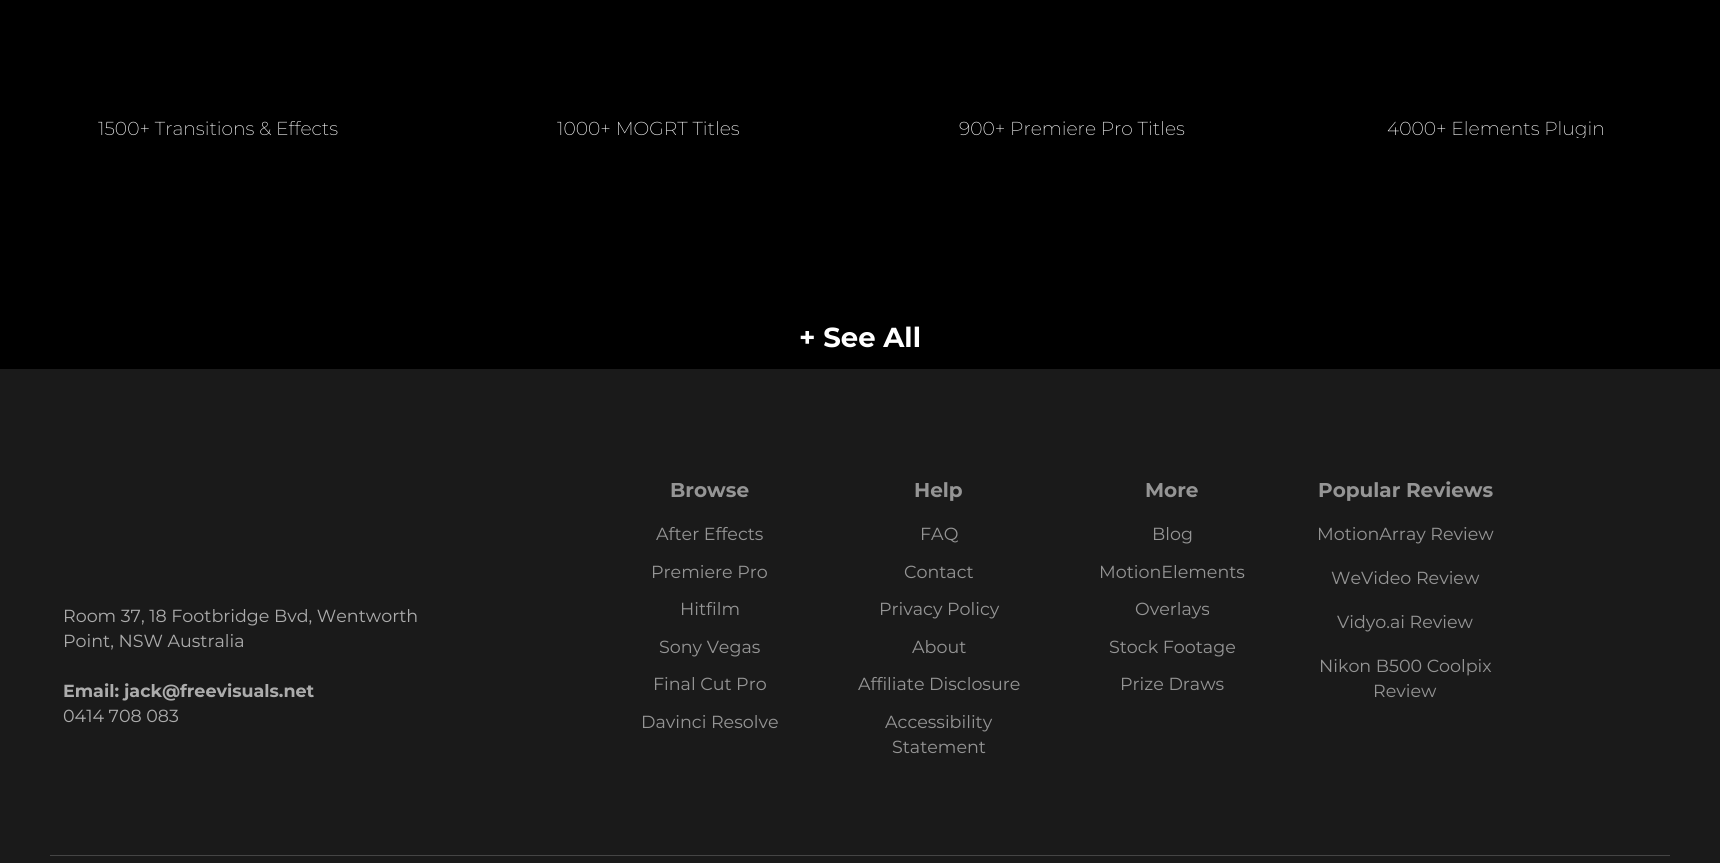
import math
import cairo

surface = cairo.ImageSurface(cairo.FORMAT_RGB24, 1720, 863)
cr = cairo.Context(surface)
options = cairo.FontOptions()
options.set_hint_metrics(cairo.HINT_METRICS_OFF)
options.set_hint_style(cairo.HINT_STYLE_NONE)
cr.set_font_options(options)
cr.set_miter_limit(4)


def rgb(code):
    cr.set_source_rgb(*(v / 255 for v in bytes.fromhex(code[-6:])))


rgb("#000000")
cr.paint()
rgb("#1a1a1a")
cr.rectangle(0, 369, 1720, 494)
cr.fill()
rgb("#454545")
cr.rectangle(50, 855, 1620, 1)
cr.fill()
cr.select_font_face("Montserrat ExtraLight")
cr.set_font_size(18.75)
rgb("#ffffff")
for x, y, s in [
    (98, 135, "1500+ Transitions & Effects"),
    (557, 135, "1000+ MOGRT Titles"),
    (959, 135, "900+ Premiere Pro Titles"),
]:
    cr.move_to(x, y)
    cr.show_text(s)
cr.save()
cr.rectangle(13, 0, 1695, 138)
cr.clip()
cr.move_to(1387, 135)
cr.show_text("4000+ Elements Plugin")
cr.restore()
cr.select_font_face("Montserrat", cairo.FONT_SLANT_NORMAL, cairo.FONT_WEIGHT_BOLD)
cr.set_font_size(27.5)
cr.move_to(799, 347)
cr.show_text("+ See All")
cr.select_font_face("Montserrat")
cr.set_font_size(17.5)
rgb("#acacac")
cr.move_to(63, 622)
cr.show_text("Room 37, 18 Footbridge Bvd, Wentworth")
cr.move_to(63, 647)
cr.show_text("Point, NSW Australia")
cr.select_font_face("Montserrat", cairo.FONT_SLANT_NORMAL, cairo.FONT_WEIGHT_BOLD)
cr.move_to(63, 697)
cr.show_text("Email: jack@freevisuals.net")
cr.select_font_face("Montserrat")
cr.move_to(63, 722)
cr.show_text("0414 708 083")
cr.select_font_face("Montserrat", cairo.FONT_SLANT_NORMAL, cairo.FONT_WEIGHT_BOLD)
cr.set_font_size(20)
rgb("#959595")
cr.move_to(670, 497)
cr.show_text("Browse")
cr.select_font_face("Montserrat")
cr.set_font_size(17.5)
for x, y, s in [
    (656, 540, "After Effects"),
    (651, 578, "Premiere Pro"),
    (680, 615, "Hitfilm"),
    (659, 653, "Sony Vegas"),
    (653, 690, "Final Cut Pro"),
    (641, 728, "Davinci Resolve"),
]:
    cr.move_to(x, y)
    cr.show_text(s)
cr.select_font_face("Montserrat", cairo.FONT_SLANT_NORMAL, cairo.FONT_WEIGHT_BOLD)
cr.set_font_size(20)
cr.move_to(914, 497)
cr.show_text("Help")
cr.select_font_face("Montserrat")
cr.set_font_size(17.5)
for x, y, s in [
    (920, 540, "FAQ"),
    (904, 578, "Contact"),
    (879, 615, "Privacy Policy"),
    (912, 653, "About"),
    (858, 690, "Affiliate Disclosure"),
    (885, 728, "Accessibility"),
    (892, 753, "Statement"),
]:
    cr.move_to(x, y)
    cr.show_text(s)
cr.select_font_face("Montserrat", cairo.FONT_SLANT_NORMAL, cairo.FONT_WEIGHT_BOLD)
cr.set_font_size(20)
cr.move_to(1145, 497)
cr.show_text("More")
cr.select_font_face("Montserrat")
cr.set_font_size(17.5)
for x, y, s in [
    (1152, 540, "Blog"),
    (1099, 578, "MotionElements"),
    (1135, 615, "Overlays"),
    (1109, 653, "Stock Footage"),
    (1120, 690, "Prize Draws"),
]:
    cr.move_to(x, y)
    cr.show_text(s)
cr.select_font_face("Montserrat", cairo.FONT_SLANT_NORMAL, cairo.FONT_WEIGHT_BOLD)
cr.set_font_size(20)
cr.move_to(1318, 497)
cr.show_text("Popular Reviews")
cr.select_font_face("Montserrat")
cr.set_font_size(17.5)
for x, y, s in [
    (1317, 540, "MotionArray Review"),
    (1331, 584, "WeVideo Review"),
    (1337, 628, "Vidyo.ai Review"),
    (1319, 672, "Nikon B500 Coolpix"),
    (1373, 697, "Review"),
]:
    cr.move_to(x, y)
    cr.show_text(s)
surface.write_to_png("page.png")
